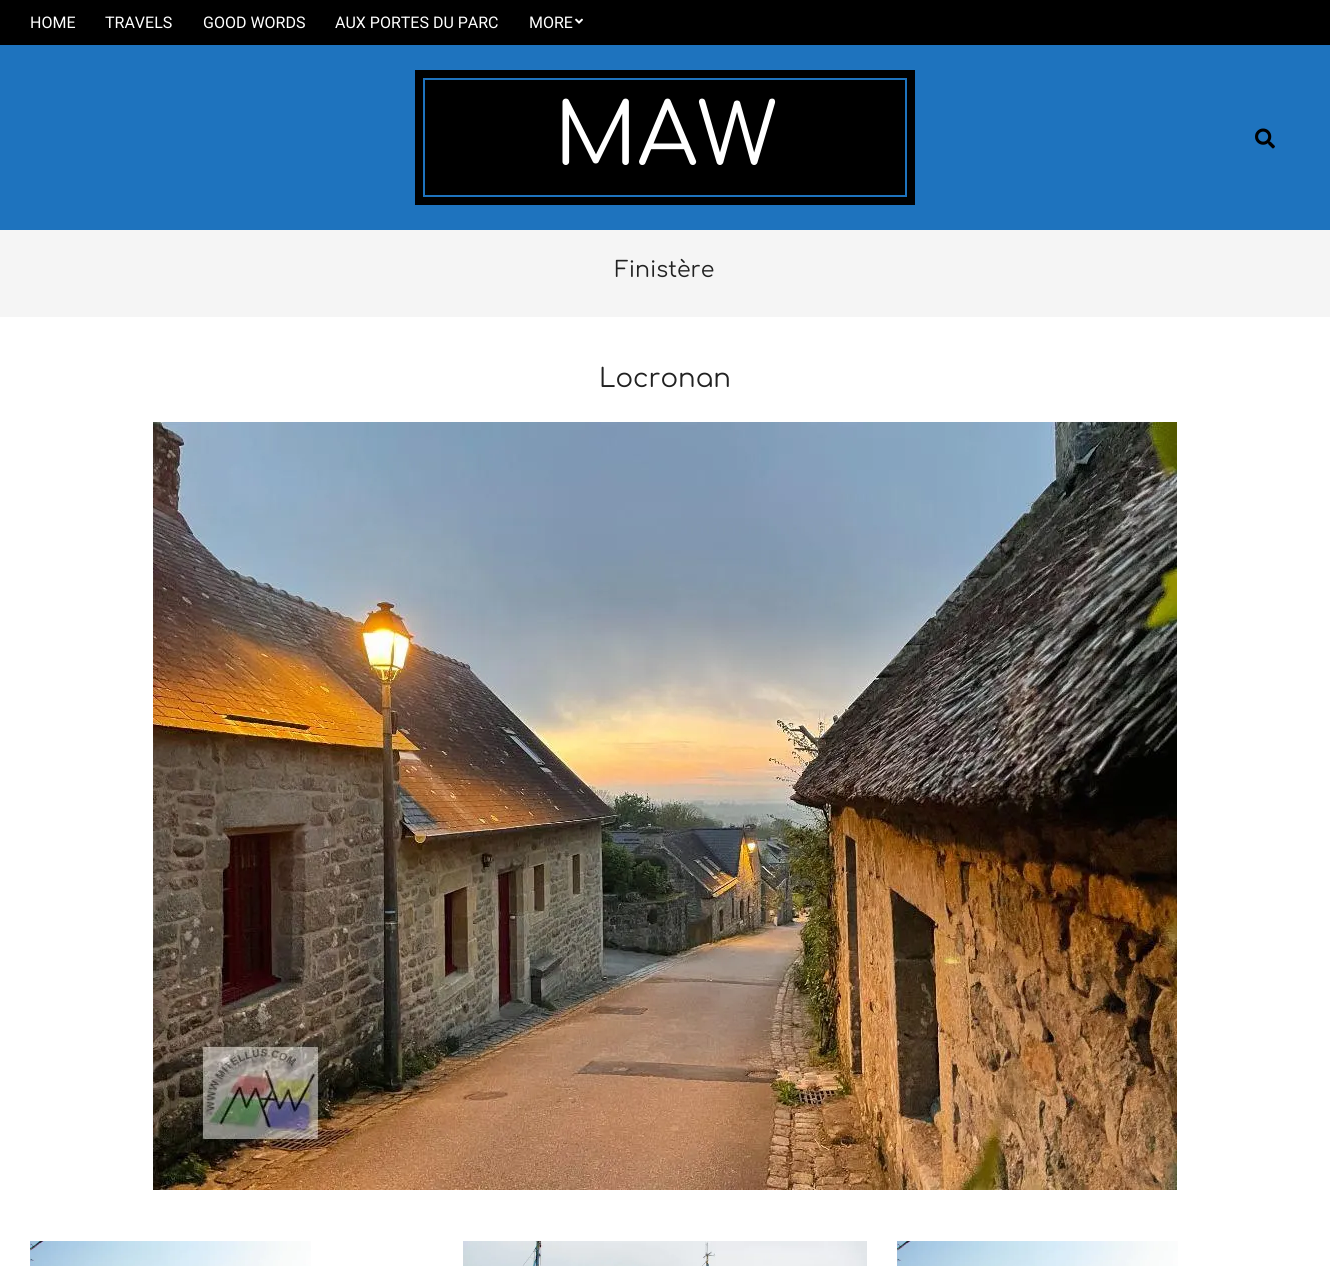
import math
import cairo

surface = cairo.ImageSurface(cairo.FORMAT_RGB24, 1330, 1266)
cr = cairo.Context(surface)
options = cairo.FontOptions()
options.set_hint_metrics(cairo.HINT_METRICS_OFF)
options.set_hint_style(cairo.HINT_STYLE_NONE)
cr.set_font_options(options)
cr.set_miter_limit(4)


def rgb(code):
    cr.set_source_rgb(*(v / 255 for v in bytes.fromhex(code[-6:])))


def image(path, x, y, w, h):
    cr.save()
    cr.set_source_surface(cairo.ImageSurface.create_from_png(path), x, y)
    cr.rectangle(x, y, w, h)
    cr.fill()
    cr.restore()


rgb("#1e73be")
cr.paint()
rgb("#000000")
cr.rectangle(0, 0, 1330, 45)
cr.fill()
image("img/1.png", 575, 18, 8, 6)
cr.rectangle(419, 74, 492, 127)
cr.set_line_width(8)
cr.stroke()
cr.rectangle(425, 80, 480, 115)
cr.fill()
image("img/2.png", 1255, 128, 20, 21)
rgb("#ffffff")
cr.rectangle(0, 317, 1330, 949)
cr.fill()
rgb("#f5f5f5")
cr.rectangle(0, 230, 1330, 87)
cr.fill()
image("img/3.png", 153, 422, 1024, 768)
image("img/4.png", 30, 1241, 281, 25)
image("img/5.png", 463, 1241, 404, 25)
image("img/4.png", 897, 1241, 281, 25)
cr.select_font_face("Roboto")
cr.set_font_size(16)
rgb("#ffffff")
for x, y, s in [
    (30, 28, "HOME"),
    (105, 28, "TRAVELS"),
    (203, 28, "GOOD WORDS"),
    (335, 28, "AUX PORTES DU PARC"),
    (529, 28, "MORE"),
]:
    cr.move_to(x, y)
    cr.show_text(s)
cr.select_font_face("Comfortaa")
cr.set_font_size(85)
cr.move_to(554, 165)
cr.show_text("MAW")
cr.set_font_size(22)
rgb("#222222")
cr.move_to(615, 277)
cr.show_text("Finistère")
cr.set_font_size(26)
cr.move_to(599, 387)
cr.show_text("Locronan")
surface.write_to_png("page.png")
